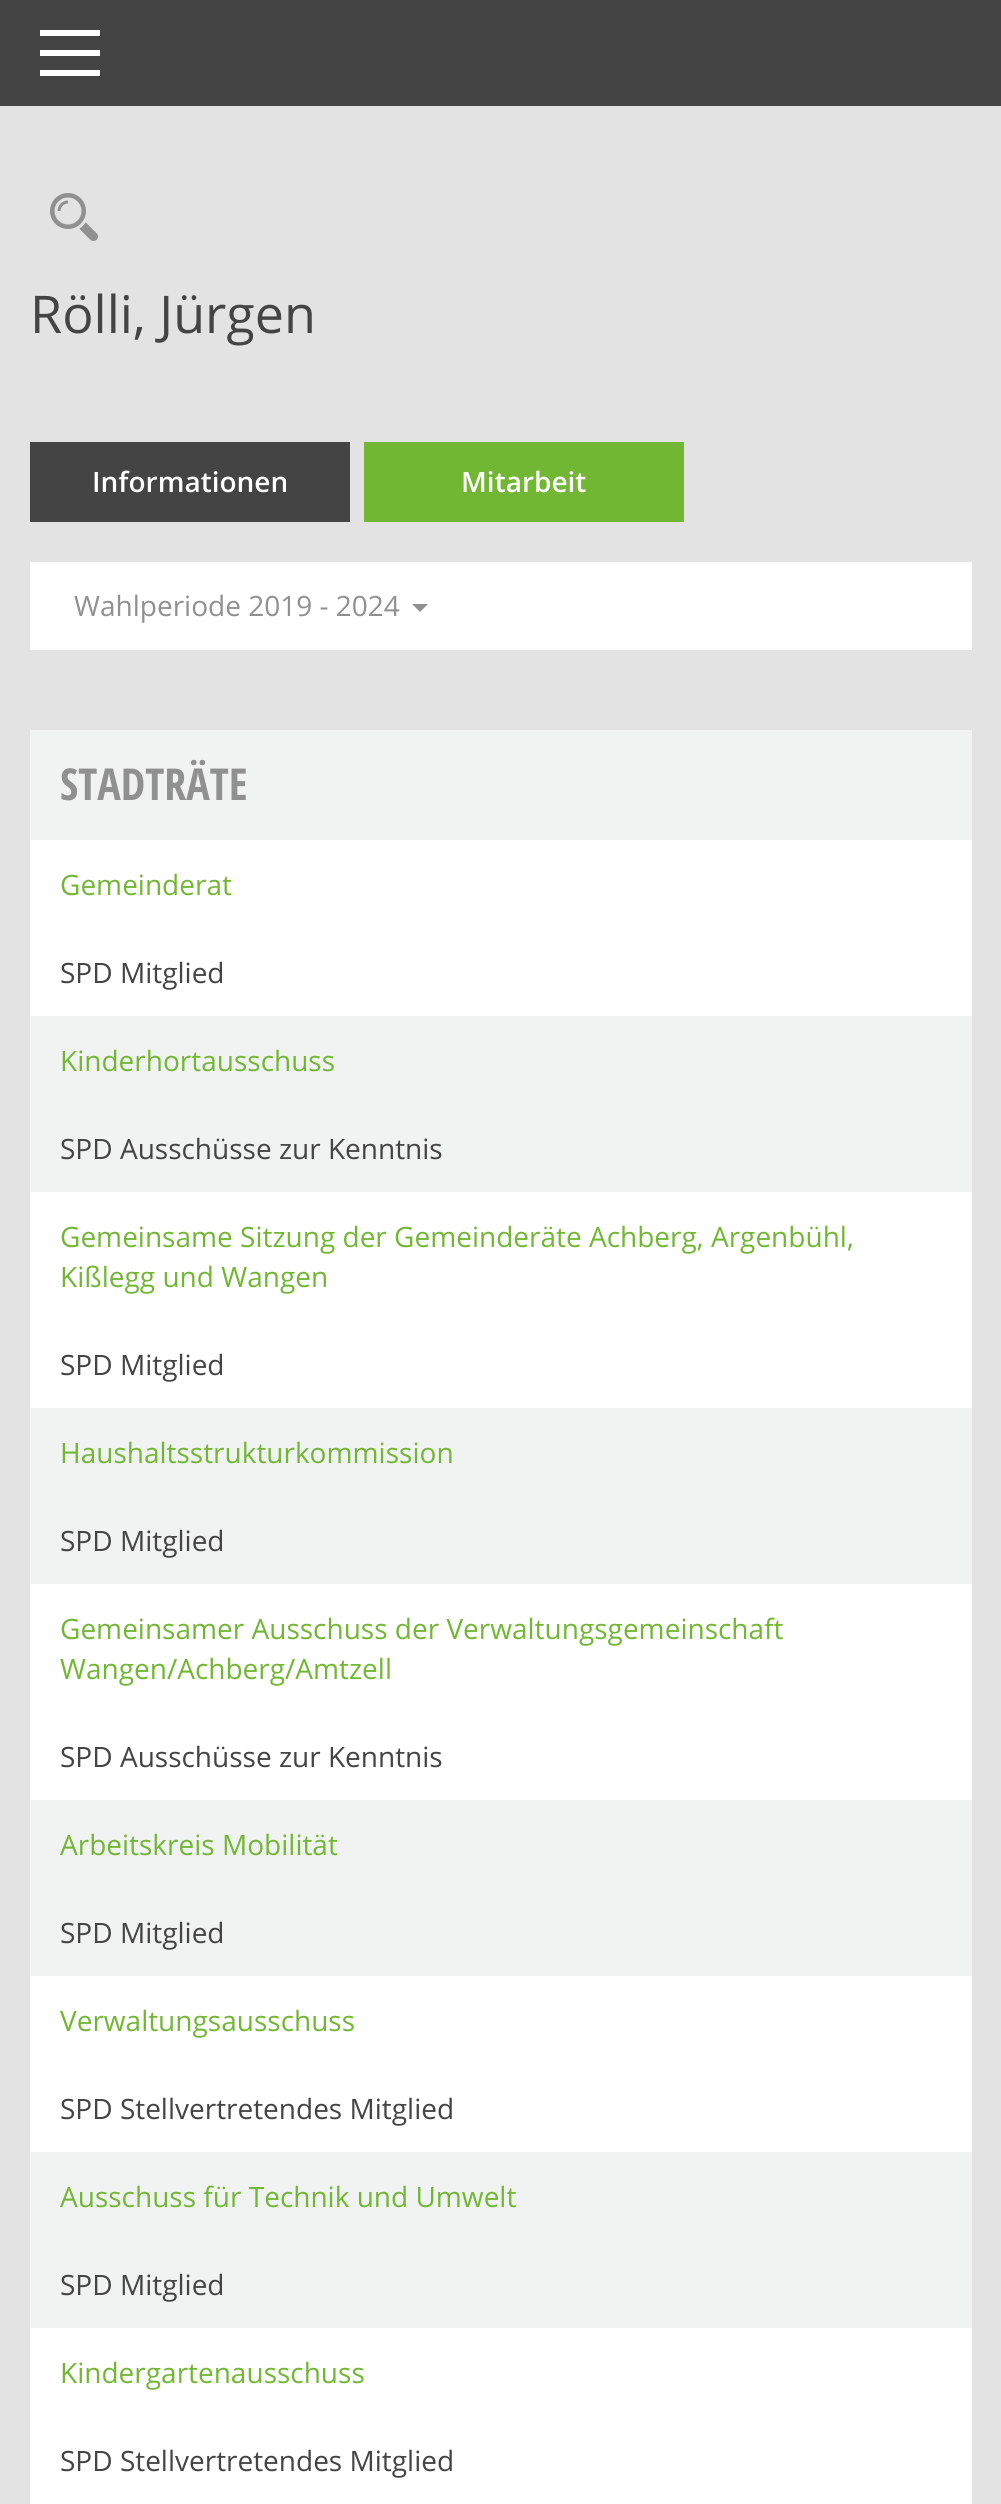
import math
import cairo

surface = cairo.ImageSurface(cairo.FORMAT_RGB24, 1001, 2504)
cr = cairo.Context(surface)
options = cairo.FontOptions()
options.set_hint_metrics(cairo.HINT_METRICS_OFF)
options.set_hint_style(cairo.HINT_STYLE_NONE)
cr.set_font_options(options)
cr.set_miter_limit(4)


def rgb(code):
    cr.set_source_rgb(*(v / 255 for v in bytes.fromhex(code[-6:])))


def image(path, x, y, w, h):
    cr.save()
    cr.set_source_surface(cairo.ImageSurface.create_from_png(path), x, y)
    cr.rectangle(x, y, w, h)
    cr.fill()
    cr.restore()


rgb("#e3e3e3")
cr.paint()
for x, y, w, h, color in [
    (0, 0, 1001, 106, "#444444"),
    (40, 30, 60, 6, "#ffffff"),
    (40, 50, 60, 6, "#ffffff"),
    (40, 70, 60, 6, "#ffffff"),
]:
    rgb(color)
    cr.rectangle(x, y, w, h)
    cr.fill()
image("img/1.png", 50, 193, 48, 48)
for x, y, w, h, color in [
    (30, 442, 320, 80, "#444444"),
    (364, 442, 320, 80, "#71b733"),
    (30, 562, 942, 88, "#ffffff"),
]:
    rgb(color)
    cr.rectangle(x, y, w, h)
    cr.fill()
rgb("#909090")
cr.new_path()
cr.move_to(412, 604)
cr.line_to(428, 604)
cr.line_to(420, 612)
cr.close_path()
cr.fill()
for x, y, w, h, color in [
    (30, 840, 942, 1664, "#ffffff"),
    (30, 730, 942, 110, "#f0f3f2"),
    (30, 1016, 942, 176, "#f0f3f2"),
    (30, 1408, 942, 176, "#f0f3f2"),
    (30, 1800, 942, 176, "#f0f3f2"),
    (30, 2152, 942, 176, "#f0f3f2"),
]:
    rgb(color)
    cr.rectangle(x, y, w, h)
    cr.fill()
cr.select_font_face("Open Sans")
cr.set_font_size(52)
rgb("#444444")
cr.move_to(30, 333)
cr.show_text("Rölli, Jürgen")
cr.select_font_face("Open Sans SemiBold")
cr.set_font_size(28)
rgb("#ffffff")
cr.move_to(92, 492)
cr.show_text("Informationen")
cr.move_to(461, 492)
cr.show_text("Mitarbeit")
cr.select_font_face("Open Sans")
rgb("#909090")
cr.move_to(74, 616)
cr.show_text("Wahlperiode 2019 - 2024")
cr.select_font_face("Open Sans Condensed", cairo.FONT_SLANT_NORMAL, cairo.FONT_WEIGHT_BOLD)
cr.set_font_size(44)
cr.move_to(60, 800)
cr.show_text("STADTRÄTE")
cr.select_font_face("Open Sans")
cr.set_font_size(28)
rgb("#71b733")
cr.move_to(60, 895)
cr.show_text("Gemeinderat")
rgb("#444444")
cr.move_to(60, 983)
cr.show_text("SPD Mitglied")
rgb("#71b733")
cr.move_to(60, 1071)
cr.show_text("Kinderhortausschuss")
rgb("#444444")
cr.move_to(60, 1159)
cr.show_text("SPD Ausschüsse zur Kenntnis")
rgb("#71b733")
cr.move_to(60, 1247)
cr.show_text("Gemeinsame Sitzung der Gemeinderäte Achberg, Argenbühl,")
cr.move_to(60, 1287)
cr.show_text("Kißlegg und Wangen")
rgb("#444444")
cr.move_to(60, 1375)
cr.show_text("SPD Mitglied")
rgb("#71b733")
cr.move_to(60, 1463)
cr.show_text("Haushaltsstrukturkommission")
rgb("#444444")
cr.move_to(60, 1551)
cr.show_text("SPD Mitglied")
rgb("#71b733")
cr.move_to(60, 1639)
cr.show_text("Gemeinsamer Ausschuss der Verwaltungsgemeinschaft")
cr.move_to(60, 1679)
cr.show_text("Wangen/Achberg/Amtzell")
rgb("#444444")
cr.move_to(60, 1767)
cr.show_text("SPD Ausschüsse zur Kenntnis")
rgb("#71b733")
cr.move_to(60, 1855)
cr.show_text("Arbeitskreis Mobilität")
rgb("#444444")
cr.move_to(60, 1943)
cr.show_text("SPD Mitglied")
rgb("#71b733")
cr.move_to(60, 2031)
cr.show_text("Verwaltungsausschuss")
rgb("#444444")
cr.move_to(60, 2119)
cr.show_text("SPD Stellvertretendes Mitglied")
rgb("#71b733")
cr.move_to(60, 2207)
cr.show_text("Ausschuss für Technik und Umwelt")
rgb("#444444")
cr.move_to(60, 2295)
cr.show_text("SPD Mitglied")
rgb("#71b733")
cr.move_to(60, 2383)
cr.show_text("Kindergartenausschuss")
rgb("#444444")
cr.move_to(60, 2471)
cr.show_text("SPD Stellvertretendes Mitglied")
surface.write_to_png("page.png")
